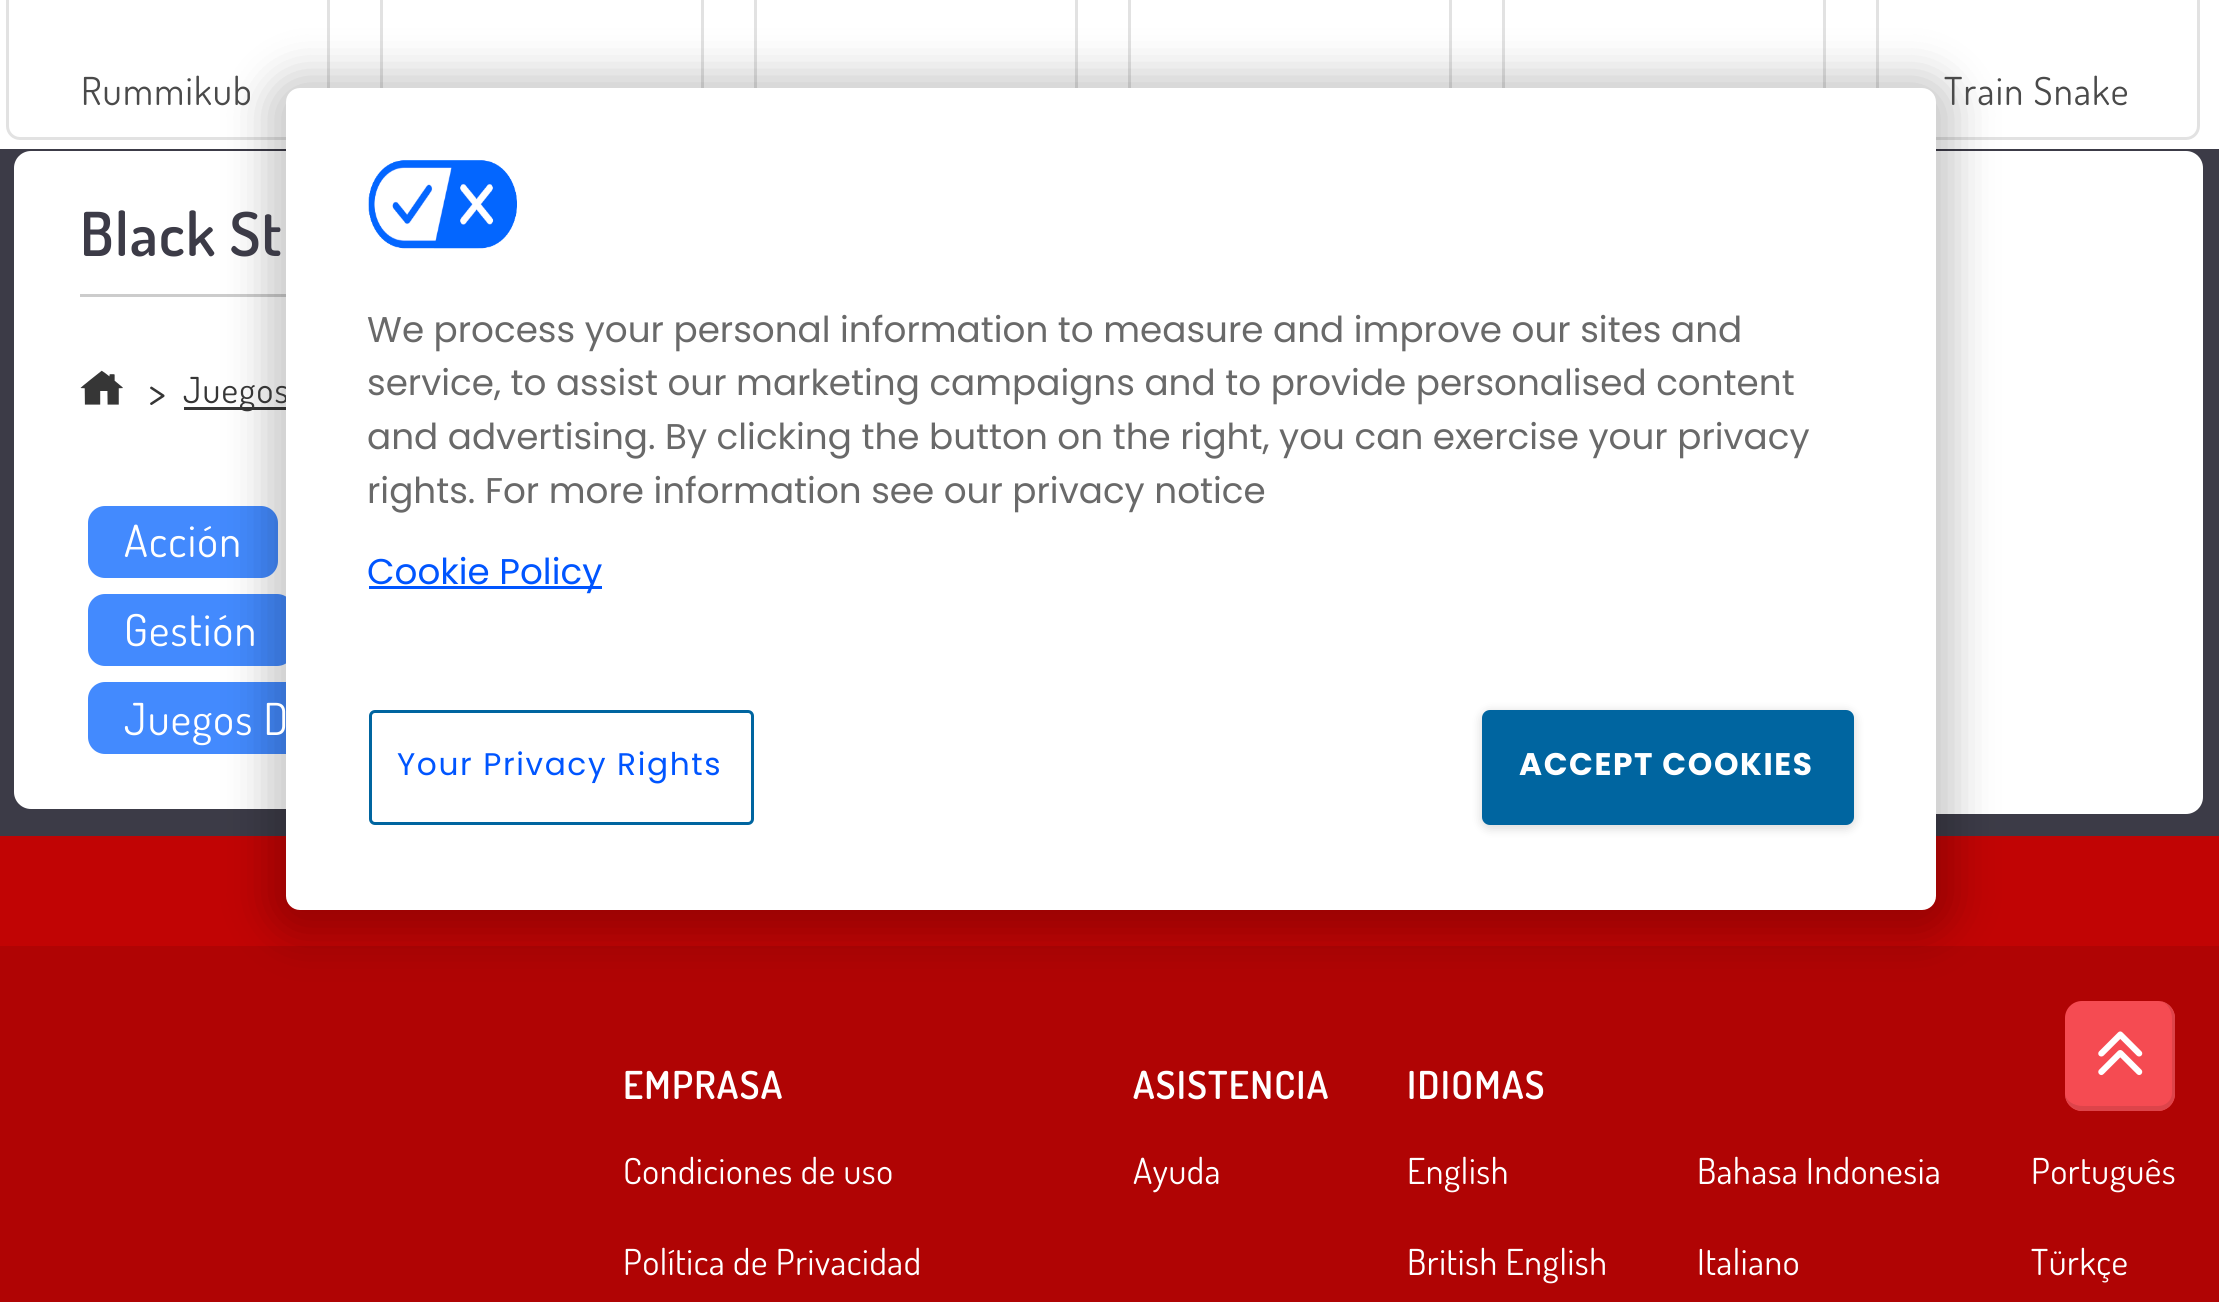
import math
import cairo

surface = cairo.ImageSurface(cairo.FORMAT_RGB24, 2219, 1302)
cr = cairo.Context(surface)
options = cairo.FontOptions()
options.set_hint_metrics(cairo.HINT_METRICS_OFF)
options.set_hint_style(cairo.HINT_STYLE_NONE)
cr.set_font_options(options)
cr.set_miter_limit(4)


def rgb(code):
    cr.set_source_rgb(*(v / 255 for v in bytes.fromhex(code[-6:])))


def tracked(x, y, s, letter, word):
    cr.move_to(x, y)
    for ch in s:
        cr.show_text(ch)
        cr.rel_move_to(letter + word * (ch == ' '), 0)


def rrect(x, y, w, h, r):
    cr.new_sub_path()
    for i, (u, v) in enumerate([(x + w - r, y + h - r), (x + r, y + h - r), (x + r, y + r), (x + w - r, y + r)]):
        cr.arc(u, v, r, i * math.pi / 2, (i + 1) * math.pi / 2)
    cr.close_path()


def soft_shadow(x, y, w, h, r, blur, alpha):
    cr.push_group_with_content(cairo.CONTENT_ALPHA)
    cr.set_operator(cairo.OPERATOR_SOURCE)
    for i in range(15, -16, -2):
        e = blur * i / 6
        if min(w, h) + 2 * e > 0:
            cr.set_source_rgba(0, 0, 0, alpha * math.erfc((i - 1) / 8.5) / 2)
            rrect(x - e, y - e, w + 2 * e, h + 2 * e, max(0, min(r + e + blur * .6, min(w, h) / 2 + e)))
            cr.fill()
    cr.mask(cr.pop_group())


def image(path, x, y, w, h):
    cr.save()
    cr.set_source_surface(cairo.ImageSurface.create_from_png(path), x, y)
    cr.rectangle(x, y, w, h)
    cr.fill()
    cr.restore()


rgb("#b00404")
cr.paint()
rgb("#3c3b47")
cr.rectangle(0, 149, 2219, 687)
cr.fill()
rgb("#ffffff")
cr.rectangle(0, 0, 2219, 149)
cr.fill()
rrect(7.5, -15.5, 321, 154, 12.5)
rgb("#e2e2e2")
cr.set_line_width(3)
cr.stroke()
cr.rectangle(381.5, -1.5, 321, 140)
cr.stroke()
cr.rectangle(755.5, -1.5, 321, 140)
cr.stroke()
cr.rectangle(1129.5, -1.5, 321, 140)
cr.stroke()
cr.rectangle(1503.5, -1.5, 321, 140)
cr.stroke()
rrect(1877.5, -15.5, 321, 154, 12.5)
cr.stroke()
rgb("#ffffff")
rrect(14, 151, 1226, 658, 17)
cr.fill()
rgb("#cccccc")
cr.rectangle(80, 294, 206, 3)
cr.fill()
image("img/1.png", 80, 370, 43, 35)
rgb("#363636")
cr.rectangle(184, 407, 102, 3)
cr.fill()
rgb("#438afe")
rrect(88, 506, 190, 72, 17)
cr.fill()
rrect(88, 594, 206, 72, 17)
cr.fill()
rrect(88, 682, 393, 72, 17)
cr.fill()
rgb("#ffffff")
rrect(1254, 151, 949, 663, 17)
cr.fill()
rgb("#c10404")
cr.rectangle(0, 836, 2219, 110)
cr.fill()
rgb("#f54b52")
rrect(2065, 1001, 110, 110, 17)
cr.fill()
rgb("#dd444a")
cr.set_fill_rule(cairo.FILL_RULE_EVEN_ODD)
cr.new_path()
cr.move_to(2083, 1001)
cr.line_to(2158, 1001)
cr.curve_to(2167, 1001, 2175, 1009, 2175, 1019)
cr.line_to(2175, 1093)
cr.curve_to(2175, 1103, 2167, 1111, 2158, 1111)
cr.line_to(2083, 1111)
cr.curve_to(2073, 1111, 2065, 1103, 2065, 1093)
cr.line_to(2065, 1019)
cr.curve_to(2065, 1009, 2073, 1001, 2083, 1001)
cr.close_path()
cr.move_to(2083, 1001)
cr.line_to(2158, 1001)
cr.curve_to(2166, 1001, 2172, 1009, 2172, 1019)
cr.line_to(2172, 1093)
cr.curve_to(2172, 1100, 2166, 1106, 2158, 1106)
cr.line_to(2083, 1106)
cr.curve_to(2073, 1106, 2065, 1100, 2065, 1093)
cr.line_to(2065, 1019)
cr.curve_to(2065, 1009, 2073, 1001, 2083, 1001)
cr.close_path()
cr.fill()
image("img/2.png", 2098, 1031, 45, 45)
rgb("#000000")
soft_shadow(264, 72, 1694, 866, 36, 20.5, 0.2)
cr.select_font_face("Dosis")
cr.set_font_size(38.5)
rgb("#4a4a4a")
tracked(81, 105, "Rummikub", 1.25, 0)
tracked(1944, 105, "Train Snake", 1.25, 0)
cr.select_font_face("Dosis SemiBold")
cr.set_font_size(60.5)
rgb("#3c3b47")
tracked(80, 256, "Black St", 1.25, 0)
cr.select_font_face("Dosis")
cr.set_font_size(44)
rgb("#363636")
tracked(148, 408, ">", 1.25, 0)
cr.set_font_size(35.75)
tracked(183, 403, "Juegos", 1.25, 0)
cr.set_font_size(44)
rgb("#ffffff")
for x, y, s in [
    (124, 557, "Acción"),
    (124, 646, "Gestión"),
    (124, 735, "Juegos D"),
]:
    tracked(x, y, s, 1.25, 0)
cr.select_font_face("Dosis SemiBold")
cr.set_font_size(38.5)
tracked(623, 1099, "EMPRASA", 1.25, 0)
cr.select_font_face("Dosis")
cr.set_font_size(35.75)
tracked(623, 1184, "Condiciones de uso", 0.6, 0)
tracked(623, 1275, "Política de Privacidad", 0.6, 0)
cr.select_font_face("Dosis SemiBold")
cr.set_font_size(38.5)
tracked(1133, 1099, "ASISTENCIA", 1.25, 0)
cr.select_font_face("Dosis")
cr.set_font_size(35.75)
tracked(1133, 1184, "Ayuda", 0.6, 0)
cr.select_font_face("Dosis SemiBold")
cr.set_font_size(38.5)
tracked(1407, 1099, "IDIOMAS", 1.25, 0)
cr.select_font_face("Dosis")
cr.set_font_size(35.75)
for x, y, s in [
    (1407, 1184, "English"),
    (1697, 1184, "Bahasa Indonesia"),
    (2031, 1184, "Português"),
    (1407, 1275, "British English"),
    (1697, 1275, "Italiano"),
    (2031, 1275, "Türkçe"),
]:
    tracked(x, y, s, 0.6, 0)
rrect(286, 88, 1650, 822, 14)
cr.fill()
image("img/3.png", 368, 160, 149, 89)
cr.select_font_face("Poppins")
rgb("#696969")
for x, y, s in [
    (367, 342, "We process your personal information to measure and improve our sites and"),
    (367, 395, "service, to assist our marketing campaigns and to provide personalised content"),
    (367, 449, "and advertising. By clicking the button on the right, you can exercise your privacy"),
    (367, 503, "rights. For more information see our privacy notice"),
]:
    cr.move_to(x, y)
    cr.show_text(s)
rgb("#0055ff")
cr.rectangle(369, 586, 233, 3)
cr.fill()
cr.move_to(367, 584)
cr.show_text("Cookie Policy")
rrect(370.5, 711.5, 382, 112, 4.5)
rgb("#0065a0")
cr.stroke()
cr.set_font_size(31.25)
rgb("#0055ff")
tracked(397, 775, "Your Privacy Rights", 1.6, 0)
rgb("#000000")
soft_shadow(1482, 712, 372, 116, 8, 5.5, 0.16)
rgb("#0065a0")
rrect(1483.5, 711.5, 369, 112, 6.5)
cr.fill_preserve()
cr.stroke()
cr.select_font_face("Poppins", cairo.FONT_SLANT_NORMAL, cairo.FONT_WEIGHT_BOLD)
rgb("#ffffff")
tracked(1519, 775, "ACCEPT COOKIES", 1.6, 0)
surface.write_to_png("page.png")
